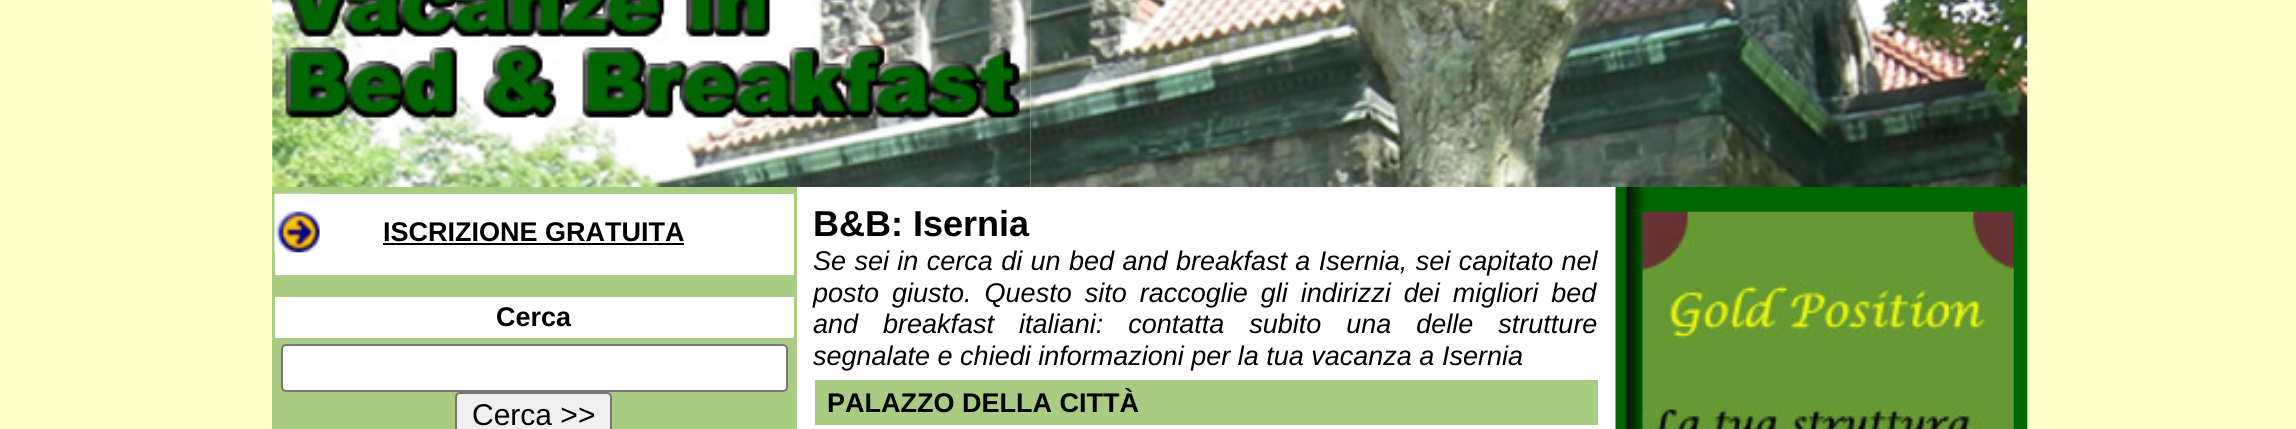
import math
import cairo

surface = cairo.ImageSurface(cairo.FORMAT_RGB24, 2296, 429)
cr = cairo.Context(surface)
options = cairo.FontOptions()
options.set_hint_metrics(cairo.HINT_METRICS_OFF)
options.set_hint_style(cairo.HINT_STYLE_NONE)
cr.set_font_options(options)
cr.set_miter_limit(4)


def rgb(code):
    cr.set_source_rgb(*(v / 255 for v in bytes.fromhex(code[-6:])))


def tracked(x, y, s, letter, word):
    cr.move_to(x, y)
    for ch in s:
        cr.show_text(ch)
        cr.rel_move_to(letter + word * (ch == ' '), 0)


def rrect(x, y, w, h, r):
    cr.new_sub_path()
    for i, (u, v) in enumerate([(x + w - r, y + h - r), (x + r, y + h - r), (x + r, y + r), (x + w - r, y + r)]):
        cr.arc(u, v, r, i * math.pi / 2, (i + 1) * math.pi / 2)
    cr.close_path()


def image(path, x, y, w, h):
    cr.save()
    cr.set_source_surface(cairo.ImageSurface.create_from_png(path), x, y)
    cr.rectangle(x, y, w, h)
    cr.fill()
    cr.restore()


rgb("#ffffcc")
cr.paint()
image("img/1.png", 272, 0, 759, 187)
image("img/2.png", 1030, 0, 998, 187)
rgb("#a8cc82")
cr.rectangle(272, 187, 525, 242)
cr.fill()
rgb("#ffffff")
cr.rectangle(275, 194, 519, 81)
cr.fill()
image("img/3.png", 274, 193, 46, 60)
rgb("#000000")
cr.rectangle(383, 243, 301, 2)
cr.fill()
rgb("#ffffff")
cr.rectangle(275, 297, 519, 41)
cr.fill()
rrect(282, 345, 505, 46, 4)
cr.fill_preserve()
rgb("#767676")
cr.stroke()
rgb("#efefef")
rrect(456, 393, 155, 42, 4)
cr.fill_preserve()
rgb("#767676")
cr.stroke()
rgb("#ffffff")
cr.rectangle(797, 187, 819, 242)
cr.fill()
rgb("#a8cc82")
cr.rectangle(815, 380, 783, 45)
cr.fill()
image("img/4.png", 1615, 187, 413, 242)
image("img/5.png", 1642, 211, 372, 218)
cr.select_font_face("Liberation Sans", cairo.FONT_SLANT_NORMAL, cairo.FONT_WEIGHT_BOLD)
cr.set_font_size(27)
rgb("#000000")
cr.move_to(383, 241)
cr.show_text("ISCRIZIONE GRATUITA")
cr.move_to(496, 326)
cr.show_text("Cerca")
cr.select_font_face("Liberation Sans")
cr.set_font_size(30)
cr.move_to(472, 425)
cr.show_text("Cerca >>")
cr.select_font_face("Liberation Sans", cairo.FONT_SLANT_NORMAL, cairo.FONT_WEIGHT_BOLD)
cr.set_font_size(36)
cr.move_to(813, 236)
cr.show_text("B&B: Isernia")
cr.select_font_face("Liberation Sans", cairo.FONT_SLANT_ITALIC)
cr.set_font_size(27)
tracked(813, 270, "Se sei in cerca di un bed and breakfast a Isernia, sei capitato nel", 0, 0.9)
tracked(813, 302, "posto giusto. Questo sito raccoglie gli indirizzi dei migliori bed", 0, 5.5)
tracked(813, 333, "and breakfast italiani: contatta subito una delle strutture", 0, 17.5)
cr.move_to(813, 365)
cr.show_text("segnalate e chiedi informazioni per la tua vacanza a Isernia")
cr.select_font_face("Liberation Sans", cairo.FONT_SLANT_NORMAL, cairo.FONT_WEIGHT_BOLD)
cr.move_to(827, 412)
cr.show_text("PALAZZO DELLA CITTÀ")
surface.write_to_png("page.png")
